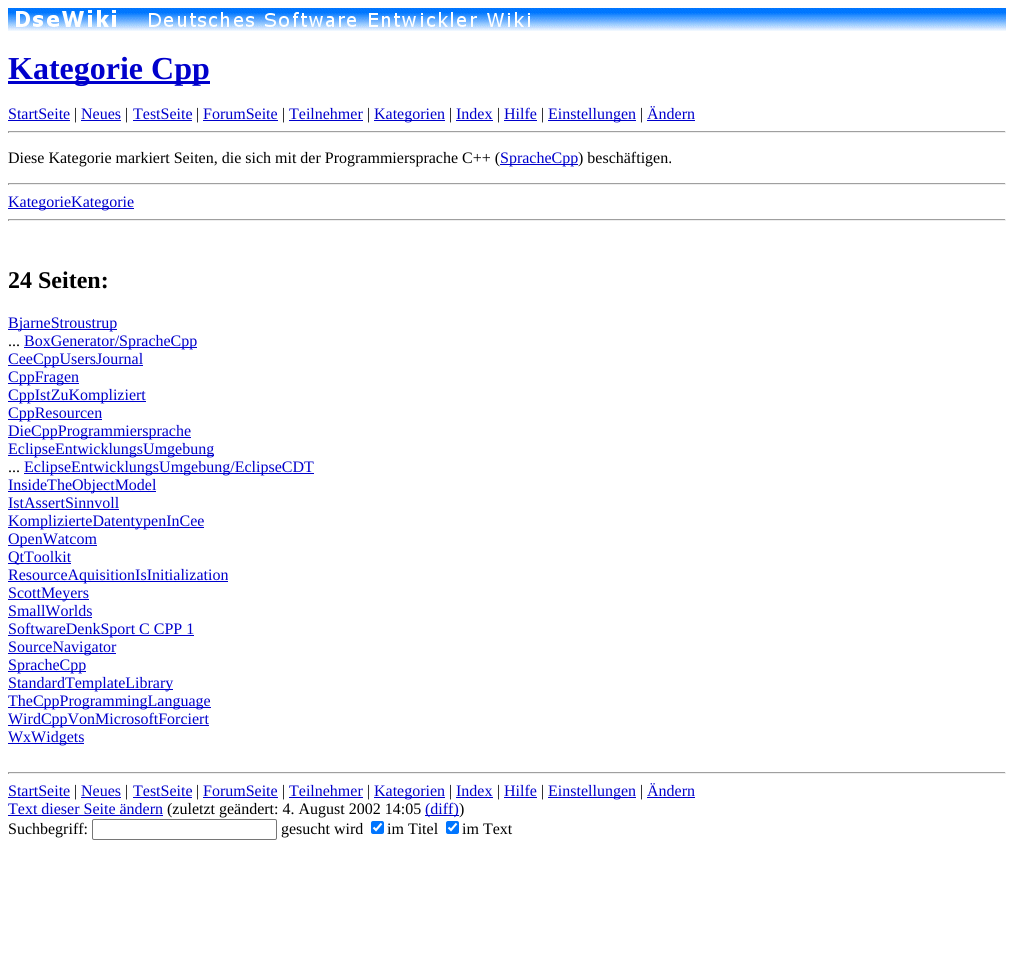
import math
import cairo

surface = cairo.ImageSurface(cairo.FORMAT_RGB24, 1014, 969)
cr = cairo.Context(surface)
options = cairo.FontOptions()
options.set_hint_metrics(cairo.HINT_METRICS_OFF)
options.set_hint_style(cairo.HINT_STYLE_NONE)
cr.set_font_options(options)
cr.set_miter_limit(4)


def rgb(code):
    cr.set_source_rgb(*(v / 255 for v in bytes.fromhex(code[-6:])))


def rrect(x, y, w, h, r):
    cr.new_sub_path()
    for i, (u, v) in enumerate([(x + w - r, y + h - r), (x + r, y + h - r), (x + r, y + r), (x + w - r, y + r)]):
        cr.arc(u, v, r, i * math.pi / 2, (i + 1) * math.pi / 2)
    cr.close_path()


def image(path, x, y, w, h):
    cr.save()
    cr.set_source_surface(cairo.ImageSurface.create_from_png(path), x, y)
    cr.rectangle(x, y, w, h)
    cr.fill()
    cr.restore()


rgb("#ffffff")
cr.paint()
image("img/1.png", 8, 8, 998, 23)
for x, y, w, h, color in [
    (8, 81, 202, 3, "#0000cc"),
    (8, 120, 62, 1, "#0000cc"),
    (81, 120, 40, 1, "#0000cc"),
    (133, 120, 59, 1, "#0000cc"),
    (203, 120, 75, 1, "#0000cc"),
    (289, 120, 74, 1, "#0000cc"),
    (374, 120, 71, 1, "#0000cc"),
    (456, 120, 37, 1, "#0000cc"),
    (504, 120, 33, 1, "#0000cc"),
    (548, 120, 88, 1, "#0000cc"),
    (647, 120, 48, 1, "#0000cc"),
    (8, 131, 998, 1, "#9f9f9f"),
    (1005, 131, 1, 2, "#eeeeee"),
    (8, 132, 998, 1, "#eeeeee"),
    (8, 131, 1, 2, "#9f9f9f"),
    (500, 164, 78, 1, "#0000cc"),
    (8, 183, 998, 1, "#9f9f9f"),
    (1005, 183, 1, 2, "#eeeeee"),
    (8, 184, 998, 1, "#eeeeee"),
    (8, 183, 1, 2, "#9f9f9f"),
    (8, 208, 126, 1, "#0000cc"),
    (8, 219, 998, 1, "#9f9f9f"),
    (1005, 219, 1, 2, "#eeeeee"),
    (8, 220, 998, 1, "#eeeeee"),
    (8, 219, 1, 2, "#9f9f9f"),
    (8, 329, 109, 1, "#0000cc"),
    (24, 347, 173, 1, "#0000cc"),
    (8, 365, 135, 1, "#0000cc"),
    (8, 383, 71, 1, "#0000cc"),
    (8, 401, 138, 1, "#0000cc"),
    (8, 419, 94, 1, "#0000cc"),
    (8, 437, 183, 1, "#0000cc"),
    (8, 455, 206, 1, "#0000cc"),
    (24, 473, 290, 1, "#0000cc"),
    (8, 491, 148, 1, "#0000cc"),
    (8, 509, 111, 1, "#0000cc"),
    (8, 527, 196, 1, "#0000cc"),
    (8, 545, 89, 1, "#0000cc"),
    (8, 563, 63, 1, "#0000cc"),
    (8, 581, 220, 1, "#0000cc"),
    (8, 599, 81, 1, "#0000cc"),
    (8, 617, 84, 1, "#0000cc"),
    (8, 635, 186, 1, "#0000cc"),
    (8, 653, 108, 1, "#0000cc"),
    (8, 671, 78, 1, "#0000cc"),
    (8, 689, 165, 1, "#0000cc"),
    (8, 707, 203, 1, "#0000cc"),
    (8, 725, 201, 1, "#0000cc"),
    (8, 743, 76, 1, "#0000cc"),
    (8, 772, 998, 1, "#9f9f9f"),
    (1005, 772, 1, 2, "#eeeeee"),
    (8, 773, 998, 1, "#eeeeee"),
    (8, 772, 1, 2, "#9f9f9f"),
    (8, 797, 62, 1, "#0000cc"),
    (81, 797, 40, 1, "#0000cc"),
    (133, 797, 59, 1, "#0000cc"),
    (203, 797, 75, 1, "#0000cc"),
    (289, 797, 74, 1, "#0000cc"),
    (374, 797, 71, 1, "#0000cc"),
    (456, 797, 37, 1, "#0000cc"),
    (504, 797, 33, 1, "#0000cc"),
    (548, 797, 88, 1, "#0000cc"),
    (647, 797, 48, 1, "#0000cc"),
    (8, 815, 155, 1, "#0000cc"),
    (425, 815, 34, 1, "#0000cc"),
]:
    rgb(color)
    cr.rectangle(x, y, w, h)
    cr.fill()
rrect(92.5, 819.5, 184, 20, 1.5)
rgb("#767676")
cr.set_line_width(1)
cr.stroke()
rgb("#0075ff")
rrect(371, 821, 13, 13, 2)
cr.fill()
cr.new_path()
cr.move_to(373.5, 827.5)
cr.line_to(376, 830)
cr.line_to(381.5, 823.5)
rgb("#ffffff")
cr.set_line_width(2.1)
cr.stroke()
rgb("#0075ff")
rrect(446, 821, 13, 13, 2)
cr.fill()
cr.new_path()
cr.move_to(448.5, 827.5)
cr.line_to(451, 830)
cr.line_to(456.5, 823.5)
rgb("#ffffff")
cr.stroke()
cr.select_font_face("Liberation Serif", cairo.FONT_SLANT_NORMAL, cairo.FONT_WEIGHT_BOLD)
cr.set_font_size(32)
rgb("#0000cc")
cr.move_to(8, 79)
cr.show_text("Kategorie Cpp")
cr.select_font_face("Liberation Serif")
cr.set_font_size(16)
cr.move_to(8, 119)
cr.show_text("StartSeite")
rgb("#000000")
cr.move_to(74, 119)
cr.show_text("|")
rgb("#0000cc")
cr.move_to(81, 119)
cr.show_text("Neues")
rgb("#000000")
cr.move_to(125, 119)
cr.show_text("|")
rgb("#0000cc")
cr.move_to(133, 119)
cr.show_text("TestSeite")
rgb("#000000")
cr.move_to(196, 119)
cr.show_text("|")
rgb("#0000cc")
cr.move_to(203, 119)
cr.show_text("ForumSeite")
rgb("#000000")
cr.move_to(282, 119)
cr.show_text("|")
rgb("#0000cc")
cr.move_to(289, 119)
cr.show_text("Teilnehmer")
rgb("#000000")
cr.move_to(367, 119)
cr.show_text("|")
rgb("#0000cc")
cr.move_to(374, 119)
cr.show_text("Kategorien")
rgb("#000000")
cr.move_to(449, 119)
cr.show_text("|")
rgb("#0000cc")
cr.move_to(456, 119)
cr.show_text("Index")
rgb("#000000")
cr.move_to(497, 119)
cr.show_text("|")
rgb("#0000cc")
cr.move_to(504, 119)
cr.show_text("Hilfe")
rgb("#000000")
cr.move_to(541, 119)
cr.show_text("|")
rgb("#0000cc")
cr.move_to(548, 119)
cr.show_text("Einstellungen")
rgb("#000000")
cr.move_to(640, 119)
cr.show_text("|")
rgb("#0000cc")
cr.move_to(647, 119)
cr.show_text("Ändern")
rgb("#000000")
cr.move_to(8, 163)
cr.show_text("Diese Kategorie markiert Seiten, die sich mit der Programmiersprache C++ (")
rgb("#0000cc")
cr.move_to(500, 163)
cr.show_text("SpracheCpp")
rgb("#000000")
cr.move_to(578, 163)
cr.show_text(") beschäftigen.")
rgb("#0000cc")
cr.move_to(8, 207)
cr.show_text("KategorieKategorie")
cr.select_font_face("Liberation Serif", cairo.FONT_SLANT_NORMAL, cairo.FONT_WEIGHT_BOLD)
cr.set_font_size(24)
rgb("#000000")
cr.move_to(8, 288)
cr.show_text("24 Seiten:")
cr.select_font_face("Liberation Serif")
cr.set_font_size(16)
rgb("#0000cc")
cr.move_to(8, 328)
cr.show_text("BjarneStroustrup")
rgb("#000000")
cr.move_to(8, 346)
cr.show_text("...")
rgb("#0000cc")
for x, y, s in [
    (24, 346, "BoxGenerator/SpracheCpp"),
    (8, 364, "CeeCppUsersJournal"),
    (8, 382, "CppFragen"),
    (8, 400, "CppIstZuKompliziert"),
    (8, 418, "CppResourcen"),
    (8, 436, "DieCppProgrammiersprache"),
    (8, 454, "EclipseEntwicklungsUmgebung"),
]:
    cr.move_to(x, y)
    cr.show_text(s)
rgb("#000000")
cr.move_to(8, 472)
cr.show_text("...")
rgb("#0000cc")
for x, y, s in [
    (24, 472, "EclipseEntwicklungsUmgebung/EclipseCDT"),
    (8, 490, "InsideTheObjectModel"),
    (8, 508, "IstAssertSinnvoll"),
    (8, 526, "KomplizierteDatentypenInCee"),
    (8, 544, "OpenWatcom"),
    (8, 562, "QtToolkit"),
    (8, 580, "ResourceAquisitionIsInitialization"),
    (8, 598, "ScottMeyers"),
    (8, 616, "SmallWorlds"),
    (8, 634, "SoftwareDenkSport C CPP 1"),
    (8, 652, "SourceNavigator"),
    (8, 670, "SpracheCpp"),
    (8, 688, "StandardTemplateLibrary"),
    (8, 706, "TheCppProgrammingLanguage"),
    (8, 724, "WirdCppVonMicrosoftForciert"),
    (8, 742, "WxWidgets"),
    (8, 796, "StartSeite"),
]:
    cr.move_to(x, y)
    cr.show_text(s)
rgb("#000000")
cr.move_to(74, 796)
cr.show_text("|")
rgb("#0000cc")
cr.move_to(81, 796)
cr.show_text("Neues")
rgb("#000000")
cr.move_to(125, 796)
cr.show_text("|")
rgb("#0000cc")
cr.move_to(133, 796)
cr.show_text("TestSeite")
rgb("#000000")
cr.move_to(196, 796)
cr.show_text("|")
rgb("#0000cc")
cr.move_to(203, 796)
cr.show_text("ForumSeite")
rgb("#000000")
cr.move_to(282, 796)
cr.show_text("|")
rgb("#0000cc")
cr.move_to(289, 796)
cr.show_text("Teilnehmer")
rgb("#000000")
cr.move_to(367, 796)
cr.show_text("|")
rgb("#0000cc")
cr.move_to(374, 796)
cr.show_text("Kategorien")
rgb("#000000")
cr.move_to(449, 796)
cr.show_text("|")
rgb("#0000cc")
cr.move_to(456, 796)
cr.show_text("Index")
rgb("#000000")
cr.move_to(497, 796)
cr.show_text("|")
rgb("#0000cc")
cr.move_to(504, 796)
cr.show_text("Hilfe")
rgb("#000000")
cr.move_to(541, 796)
cr.show_text("|")
rgb("#0000cc")
cr.move_to(548, 796)
cr.show_text("Einstellungen")
rgb("#000000")
cr.move_to(640, 796)
cr.show_text("|")
rgb("#0000cc")
cr.move_to(647, 796)
cr.show_text("Ändern")
cr.move_to(8, 814)
cr.show_text("Text dieser Seite ändern")
rgb("#000000")
cr.move_to(167, 814)
cr.show_text("(zuletzt geändert: 4. August 2002 14:05")
rgb("#0000cc")
cr.move_to(425, 814)
cr.show_text("(diff)")
rgb("#000000")
for x, y, s in [
    (459, 814, ")"),
    (8, 834, "Suchbegriff:"),
    (281, 834, "gesucht wird"),
    (387, 834, "im Titel"),
    (462, 834, "im Text"),
]:
    cr.move_to(x, y)
    cr.show_text(s)
surface.write_to_png("page.png")
